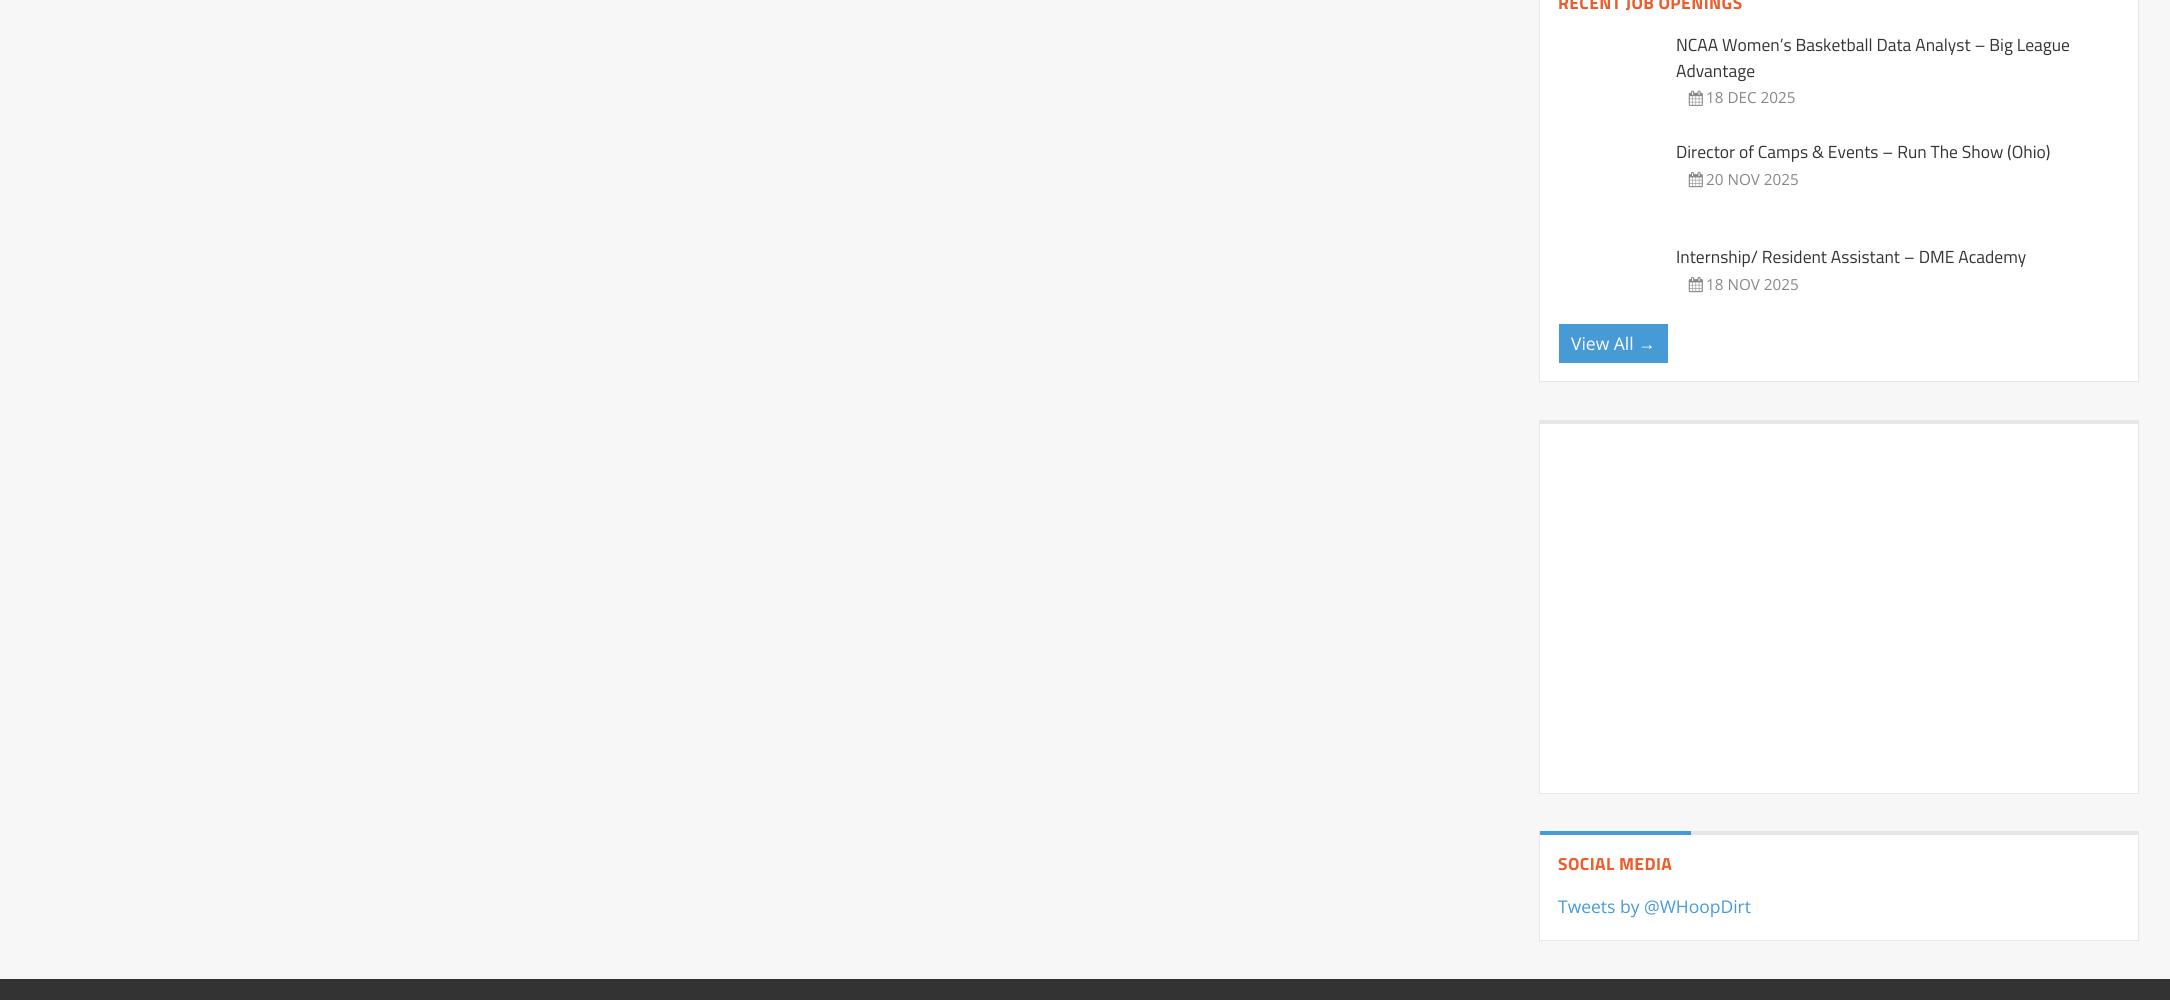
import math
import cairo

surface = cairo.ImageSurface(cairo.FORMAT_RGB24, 2170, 1000)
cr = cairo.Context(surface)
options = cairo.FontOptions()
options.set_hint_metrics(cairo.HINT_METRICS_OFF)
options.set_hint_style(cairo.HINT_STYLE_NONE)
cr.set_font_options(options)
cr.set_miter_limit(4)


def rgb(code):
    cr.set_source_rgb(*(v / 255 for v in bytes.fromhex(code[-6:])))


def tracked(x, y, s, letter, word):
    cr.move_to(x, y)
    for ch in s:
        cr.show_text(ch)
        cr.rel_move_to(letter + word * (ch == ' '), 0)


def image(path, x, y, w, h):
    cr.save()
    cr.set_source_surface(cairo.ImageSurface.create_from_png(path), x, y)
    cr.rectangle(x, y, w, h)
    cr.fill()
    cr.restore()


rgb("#f7f7f7")
cr.paint()
for x, y, w, h, color in [
    (1540, 0, 598, 381, "#ffffff"),
    (2138, 0, 1, 383, "#e6e6e6"),
    (1539, 381, 600, 1, "#e6e6e6"),
    (1539, 0, 1, 383, "#e6e6e6"),
]:
    rgb(color)
    cr.rectangle(x, y, w, h)
    cr.fill()
image("img/1.png", 1688, 90, 15, 16)
image("img/2.png", 1688, 171, 15, 17)
image("img/2.png", 1688, 276, 15, 17)
for x, y, w, h, color in [
    (1559, 324, 109, 39, "#469bd7"),
    (1540, 424, 598, 369, "#ffffff"),
    (1539, 420, 600, 4, "#e6e6e6"),
    (2138, 420, 1, 374, "#e6e6e6"),
    (1539, 793, 600, 1, "#e6e6e6"),
    (1539, 420, 1, 374, "#e6e6e6"),
    (1540, 835, 598, 105, "#ffffff"),
    (1691, 831, 448, 4, "#e6e6e6"),
    (2138, 831, 1, 110, "#e6e6e6"),
    (1539, 940, 600, 1, "#e6e6e6"),
    (1539, 831, 1, 110, "#e6e6e6"),
    (1540, 831, 151, 4, "#469bd7"),
    (0, 979, 2170, 21, "#333333"),
]:
    rgb(color)
    cr.rectangle(x, y, w, h)
    cr.fill()
cr.select_font_face("Titillium Web", cairo.FONT_SLANT_NORMAL, cairo.FONT_WEIGHT_BOLD)
cr.set_font_size(17.5)
rgb("#ee5c29")
tracked(1558, 9, "RECENT JOB OPENINGS", 0.4, 0)
cr.select_font_face("Titillium Web")
rgb("#333333")
cr.move_to(1676, 51)
cr.show_text("NCAA Women’s Basketball Data Analyst – Big League")
cr.move_to(1676, 77)
cr.show_text("Advantage")
cr.select_font_face("Open Sans")
cr.set_font_size(15.25)
rgb("#888888")
cr.move_to(1706, 103)
cr.show_text("18 DEC 2025")
cr.select_font_face("Titillium Web")
cr.set_font_size(17.5)
rgb("#333333")
cr.move_to(1676, 158)
cr.show_text("Director of Camps & Events – Run The Show (Ohio)")
cr.select_font_face("Open Sans")
cr.set_font_size(15.25)
rgb("#888888")
cr.move_to(1706, 185)
cr.show_text("20 NOV 2025")
cr.select_font_face("Titillium Web")
cr.set_font_size(17.5)
rgb("#333333")
cr.move_to(1676, 263)
cr.show_text("Internship/ Resident Assistant – DME Academy")
cr.select_font_face("Open Sans")
cr.set_font_size(15.25)
rgb("#888888")
cr.move_to(1706, 290)
cr.show_text("18 NOV 2025")
cr.set_font_size(17.5)
rgb("#ffffff")
cr.move_to(1571, 350)
cr.show_text("View All")
cr.select_font_face("Liberation Serif")
cr.move_to(1638, 350)
cr.show_text("→")
cr.select_font_face("Titillium Web", cairo.FONT_SLANT_NORMAL, cairo.FONT_WEIGHT_BOLD)
rgb("#ee5c29")
tracked(1558, 870, "SOCIAL MEDIA", 0.4, 0)
cr.select_font_face("Open Sans")
rgb("#469bd7")
cr.move_to(1558, 913)
cr.show_text("Tweets by @WHoopDirt")
surface.write_to_png("page.png")
